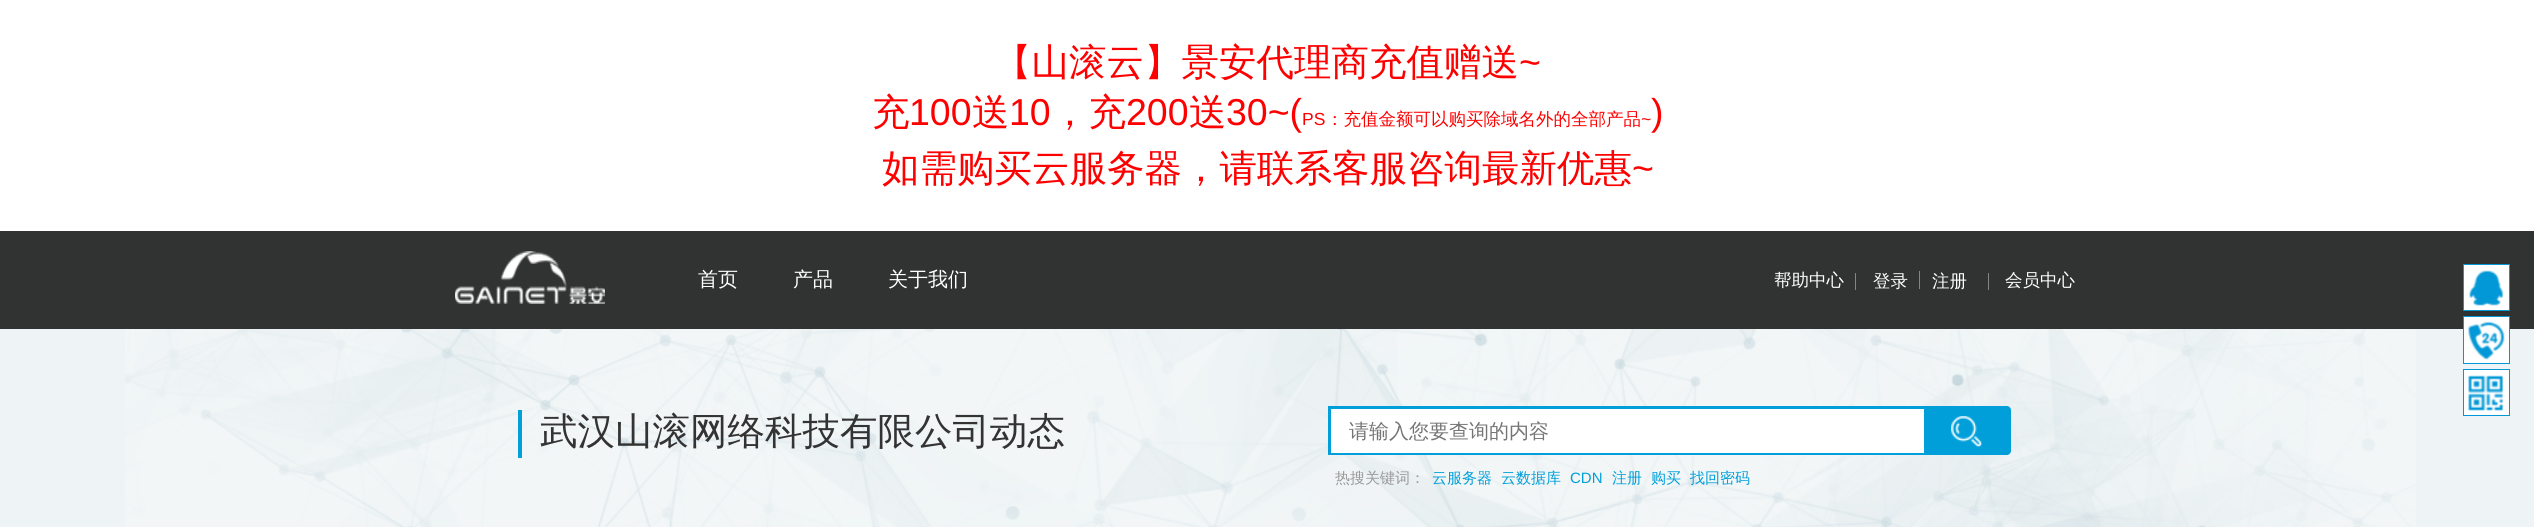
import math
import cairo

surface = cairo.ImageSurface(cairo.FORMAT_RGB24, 2534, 527)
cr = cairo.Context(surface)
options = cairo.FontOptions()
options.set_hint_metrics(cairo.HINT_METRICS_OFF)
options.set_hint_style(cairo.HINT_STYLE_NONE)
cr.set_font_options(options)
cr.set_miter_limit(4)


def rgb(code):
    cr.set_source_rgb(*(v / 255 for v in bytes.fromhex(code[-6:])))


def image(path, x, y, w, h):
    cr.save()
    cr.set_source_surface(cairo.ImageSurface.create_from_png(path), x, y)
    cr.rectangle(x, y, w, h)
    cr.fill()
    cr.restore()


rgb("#ffffff")
cr.paint()
rgb("#313332")
cr.rectangle(0, 231, 2534, 98)
cr.fill()
image("img/1.png", 455, 251, 150, 53)
for x, y, w, h, color in [
    (1855, 273, 1, 17, "#838584"),
    (1919, 271, 1, 18, "#838584"),
    (1988, 273, 1, 17, "#838584"),
    (2464, 265, 45, 45, "#ffffff"),
]:
    rgb(color)
    cr.rectangle(x, y, w, h)
    cr.fill()
image("img/2.png", 2469, 270, 35, 36)
cr.rectangle(2463.5, 264.5, 46, 46)
rgb("#0297d6")
cr.set_line_width(1)
cr.stroke()
rgb("#eef4f5")
cr.rectangle(0, 329, 2534, 198)
cr.fill()
rgb("#ffffff")
cr.rectangle(2464, 317, 45, 46)
cr.fill()
image("img/3.png", 2468, 321, 37, 39)
cr.rectangle(2463.5, 316.5, 46, 47)
rgb("#0297d6")
cr.stroke()
rgb("#ffffff")
cr.rectangle(2464, 370, 45, 45)
cr.fill()
image("img/4.png", 2468, 375, 36, 36)
cr.rectangle(2463.5, 369.5, 46, 46)
rgb("#0297d6")
cr.stroke()
image("img/5.png", 125, 329, 2291, 198)
for x, y, w, h, color in [
    (518, 410, 4, 48, "#009fd9"),
    (1331, 409, 593, 44, "#ffffff"),
    (1328, 406, 596, 3, "#009fd9"),
    (1328, 453, 596, 2, "#009fd9"),
    (1328, 406, 3, 49, "#009fd9"),
]:
    rgb(color)
    cr.rectangle(x, y, w, h)
    cr.fill()
cr.new_path()
cr.move_to(1924, 406)
cr.line_to(2007, 406)
cr.curve_to(2009, 406, 2011, 408, 2011, 410)
cr.line_to(2011, 451)
cr.curve_to(2011, 453, 2009, 455, 2007, 455)
cr.line_to(1924, 455)
cr.close_path()
cr.fill()
image("img/6.png", 1951, 416, 31, 31)
cr.select_font_face("WenQuanYi Zen Hei Medium")
cr.set_font_size(37.5)
rgb("#ff0000")
cr.move_to(994, 75)
cr.show_text("【山滚云】景安代理商充值赠送")
cr.select_font_face("Liberation Sans")
cr.move_to(1519, 75)
cr.show_text("~")
cr.select_font_face("WenQuanYi Zen Hei Medium")
cr.move_to(872, 125)
cr.show_text("充")
cr.select_font_face("Liberation Sans")
cr.move_to(909, 125)
cr.show_text("100")
cr.select_font_face("WenQuanYi Zen Hei Medium")
cr.move_to(972, 125)
cr.show_text("送")
cr.select_font_face("Liberation Sans")
cr.move_to(1009, 125)
cr.show_text("10")
cr.select_font_face("WenQuanYi Zen Hei Medium")
cr.move_to(1051, 125)
cr.show_text("，充")
cr.select_font_face("Liberation Sans")
cr.move_to(1126, 125)
cr.show_text("200")
cr.select_font_face("WenQuanYi Zen Hei Medium")
cr.move_to(1189, 125)
cr.show_text("送")
cr.select_font_face("Liberation Sans")
cr.move_to(1226, 125)
cr.show_text("30~(")
cr.set_font_size(17.5)
cr.move_to(1302, 125)
cr.show_text("PS")
cr.select_font_face("WenQuanYi Zen Hei Medium")
cr.move_to(1326, 125)
cr.show_text("：充值金额可以购买除域名外的全部产品")
cr.select_font_face("Liberation Sans")
cr.move_to(1641, 125)
cr.show_text("~")
cr.set_font_size(37.5)
cr.move_to(1651, 125)
cr.show_text(")")
cr.select_font_face("WenQuanYi Zen Hei Medium")
cr.move_to(882, 181)
cr.show_text("如需购买云服务器，请联系客服咨询最新优惠")
cr.select_font_face("Liberation Sans")
cr.move_to(1632, 181)
cr.show_text("~")
cr.select_font_face("WenQuanYi Zen Hei Medium")
cr.set_font_size(20)
rgb("#ffffff")
for x, y, s in [
    (698, 286, "首页"),
    (793, 286, "产品"),
    (888, 286, "关于我们"),
]:
    cr.move_to(x, y)
    cr.show_text(s)
cr.set_font_size(17.5)
for x, y, s in [
    (1774, 286, "帮助中心"),
    (1873, 287, "登录"),
    (1932, 287, "注册"),
    (2005, 286, "会员中心"),
]:
    cr.move_to(x, y)
    cr.show_text(s)
cr.set_font_size(37.5)
rgb("#333333")
cr.move_to(540, 444)
cr.show_text("武汉山滚网络科技有限公司动态")
cr.set_font_size(20)
rgb("#757575")
cr.move_to(1349, 438)
cr.show_text("请输入您要查询的内容")
cr.set_font_size(15)
rgb("#999999")
cr.move_to(1335, 483)
cr.show_text("热搜关键词：")
rgb("#009fd9")
cr.move_to(1432, 483)
cr.show_text("云服务器")
cr.move_to(1501, 483)
cr.show_text("云数据库")
cr.select_font_face("Liberation Sans")
cr.move_to(1570, 483)
cr.show_text("CDN")
cr.select_font_face("WenQuanYi Zen Hei Medium")
for x, y, s in [
    (1612, 483, "注册"),
    (1651, 483, "购买"),
    (1690, 483, "找回密码"),
]:
    cr.move_to(x, y)
    cr.show_text(s)
surface.write_to_png("page.png")
